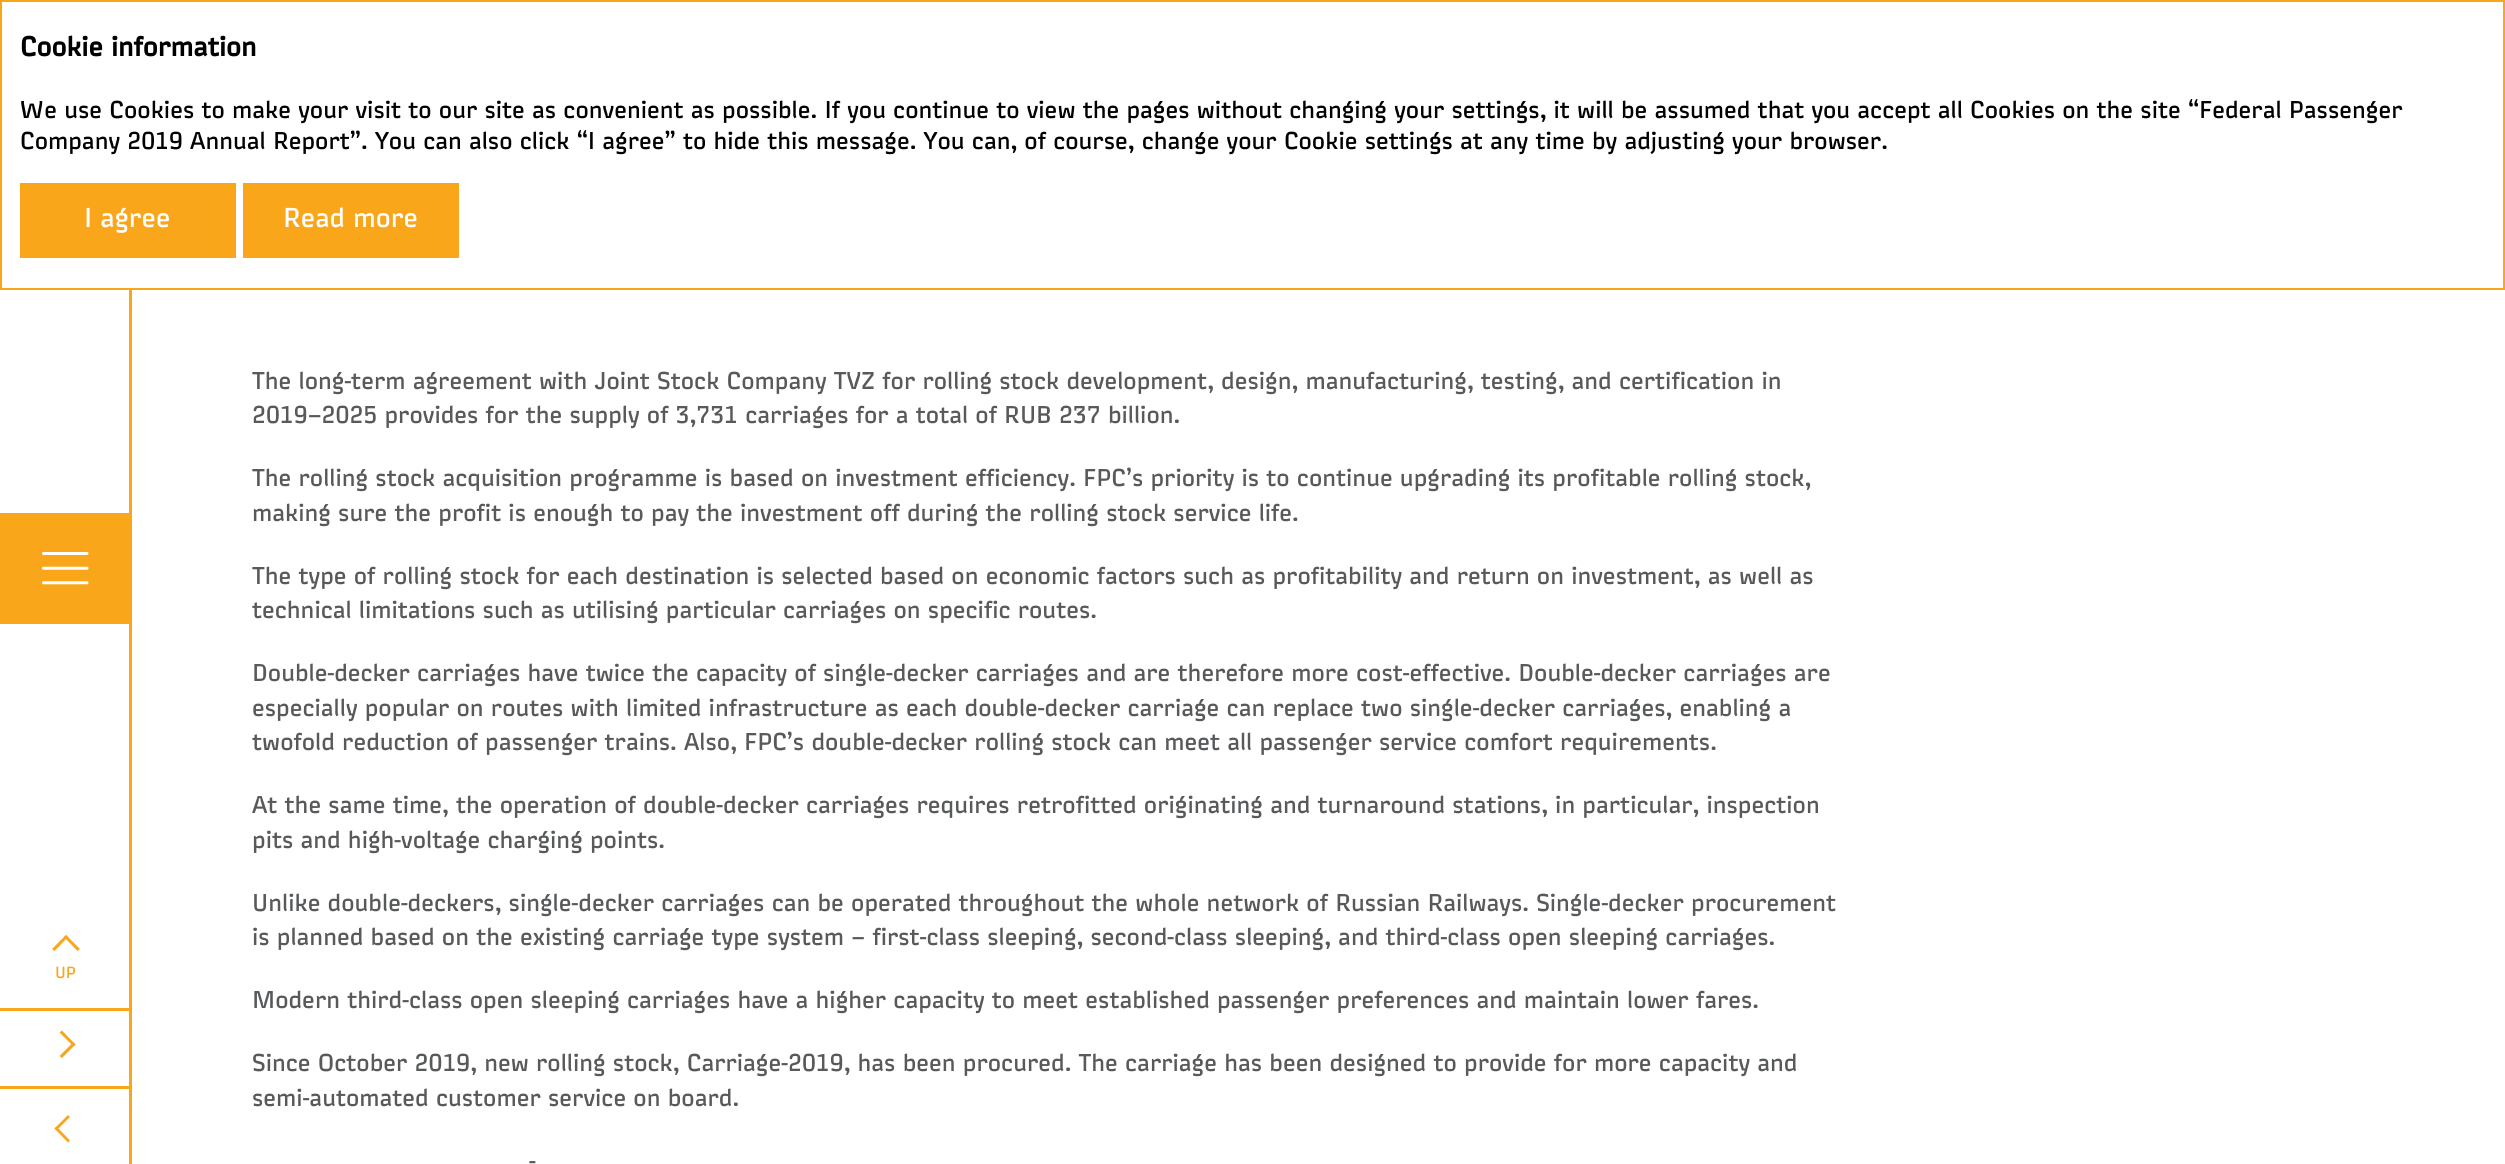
import math
import cairo

surface = cairo.ImageSurface(cairo.FORMAT_RGB24, 2505, 1164)
cr = cairo.Context(surface)
options = cairo.FontOptions()
options.set_hint_metrics(cairo.HINT_METRICS_OFF)
options.set_hint_style(cairo.HINT_STYLE_NONE)
cr.set_font_options(options)
cr.set_miter_limit(4)


def rgb(code):
    cr.set_source_rgb(*(v / 255 for v in bytes.fromhex(code[-6:])))


def image(path, x, y, w, h):
    cr.save()
    cr.set_source_surface(cairo.ImageSurface.create_from_png(path), x, y)
    cr.rectangle(x, y, w, h)
    cr.fill()
    cr.restore()


rgb("#ffffff")
cr.paint()
cr.rectangle(1, 1, 2503, 288)
rgb("#faa61a")
cr.stroke()
for x, y, w, h, color in [
    (20, 183, 216, 75, "#faa61a"),
    (243, 183, 216, 75, "#faa61a"),
    (129, 290, 3, 874, "#faa61a"),
    (0, 513, 129, 111, "#faa61a"),
]:
    rgb(color)
    cr.rectangle(x, y, w, h)
    cr.fill()
image("img/1.png", 42, 552, 47, 33)
cr.new_path()
cr.move_to(66, 935)
cr.line_to(80, 949)
cr.line_to(77.5, 951)
cr.line_to(64, 937)
cr.close_path()
cr.fill()
cr.new_path()
cr.move_to(66, 935)
cr.line_to(68, 937)
cr.line_to(54.5, 951)
cr.line_to(52, 949)
cr.close_path()
cr.fill()
cr.rectangle(0, 1008, 132, 3)
cr.fill()
cr.new_path()
cr.move_to(62, 1030.5)
cr.line_to(75.5, 1044.5)
cr.line_to(73.5, 1046.5)
cr.line_to(59.5, 1032.5)
cr.close_path()
cr.fill()
cr.new_path()
cr.move_to(73.5, 1042)
cr.line_to(75.5, 1044.5)
cr.line_to(62, 1058)
cr.line_to(59.5, 1056)
cr.close_path()
cr.fill()
cr.rectangle(0, 1086, 132, 3)
cr.fill()
cr.new_path()
cr.move_to(56.5, 1126.5)
cr.line_to(70, 1140.5)
cr.line_to(68, 1142.5)
cr.line_to(54.5, 1128.5)
cr.close_path()
cr.fill()
cr.new_path()
cr.move_to(68, 1115)
cr.line_to(70, 1117)
cr.line_to(56.5, 1130.5)
cr.line_to(54.5, 1128.5)
cr.close_path()
cr.fill()
cr.select_font_face("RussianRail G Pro", cairo.FONT_SLANT_NORMAL, cairo.FONT_WEIGHT_BOLD)
cr.set_font_size(27)
rgb("#000000")
cr.move_to(20, 56)
cr.show_text("Cookie information")
cr.select_font_face("RussianRail G Pro")
cr.set_font_size(24)
cr.move_to(20, 118)
cr.show_text("We use Cookies to make your visit to our site as convenient as possible. If you continue to view the pages without changing your settings, it will be assumed that you accept all Cookies on the site “Federal Passenger")
cr.move_to(20, 149)
cr.show_text("Company 2019 Annual Report”. You can also click “I agree” to hide this message. You can, of course, change your Cookie settings at any time by adjusting your browser.")
cr.set_font_size(27)
rgb("#ffffff")
cr.move_to(84, 227)
cr.show_text("I agree")
cr.move_to(283, 227)
cr.show_text("Read more")
cr.set_font_size(16)
rgb("#faa61a")
cr.move_to(55, 978)
cr.show_text("UP")
cr.set_font_size(24)
rgb("#58595b")
for x, y, s in [
    (252, 389, "The long-term agreement with Joint Stock Company TVZ for rolling stock development, design, manufacturing, testing, and certification in"),
    (252, 423, "2019–2025 provides for the supply of 3,731 carriages for a total of RUB 237 billion."),
    (252, 486, "The rolling stock acquisition programme is based on investment efficiency. FPC’s priority is to continue upgrading its profitable rolling stock,"),
    (252, 521, "making sure the profit is enough to pay the investment off during the rolling stock service life."),
    (252, 584, "The type of rolling stock for each destination is selected based on economic factors such as profitability and return on investment, as well as"),
    (252, 618, "technical limitations such as utilising particular carriages on specific routes."),
    (252, 681, "Double-decker carriages have twice the capacity of single-decker carriages and are therefore more cost-effective. Double-decker carriages are"),
    (252, 716, "especially popular on routes with limited infrastructure as each double-decker carriage can replace two single-decker carriages, enabling a"),
    (252, 750, "twofold reduction of passenger trains. Also, FPC’s double-decker rolling stock can meet all passenger service comfort requirements."),
    (252, 813, "At the same time, the operation of double-decker carriages requires retrofitted originating and turnaround stations, in particular, inspection"),
    (252, 848, "pits and high-voltage charging points."),
    (252, 911, "Unlike double-deckers, single-decker carriages can be operated throughout the whole network of Russian Railways. Single-decker procurement"),
    (252, 945, "is planned based on the existing carriage type system – first-class sleeping, second-class sleeping, and third-class open sleeping carriages."),
    (252, 1008, "Modern third-class open sleeping carriages have a higher capacity to meet established passenger preferences and maintain lower fares."),
    (252, 1071, "Since October 2019, new rolling stock, Carriage-2019, has been procured. The carriage has been designed to provide for more capacity and"),
    (252, 1106, "semi-automated customer service on board."),
    (529, 1169, "-"),
]:
    cr.move_to(x, y)
    cr.show_text(s)
surface.write_to_png("page.png")
